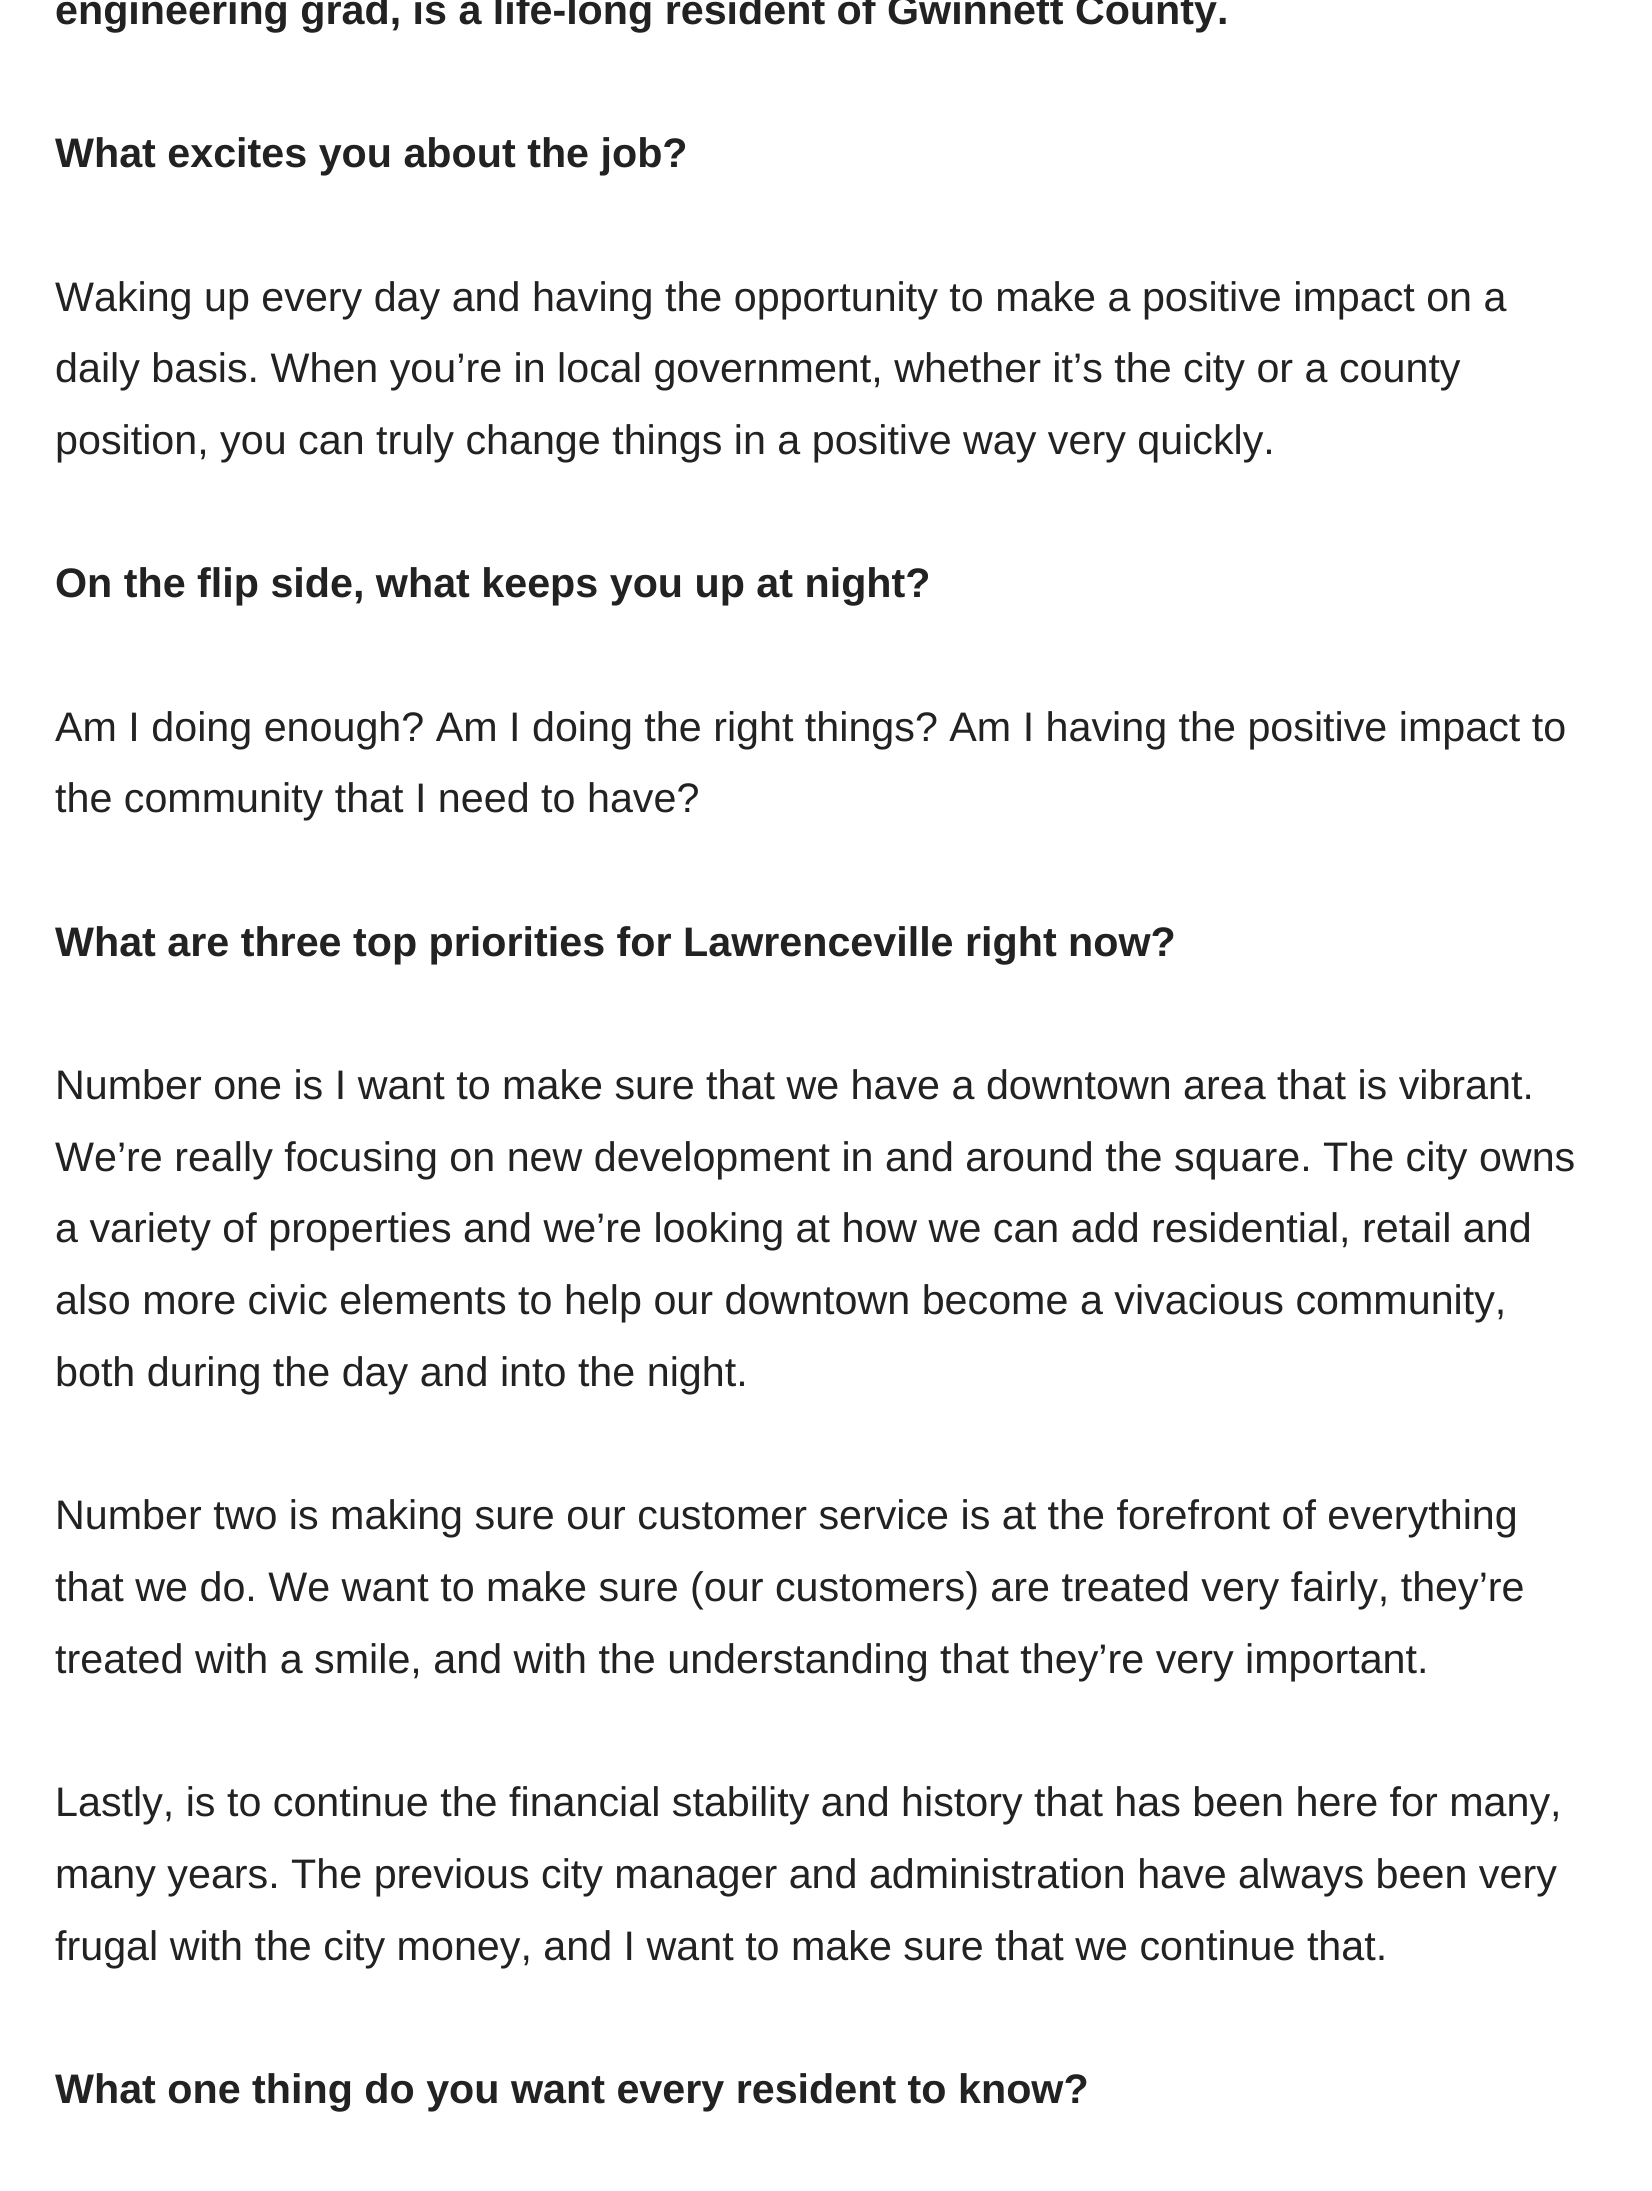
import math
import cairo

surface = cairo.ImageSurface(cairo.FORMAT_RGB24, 1652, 2191)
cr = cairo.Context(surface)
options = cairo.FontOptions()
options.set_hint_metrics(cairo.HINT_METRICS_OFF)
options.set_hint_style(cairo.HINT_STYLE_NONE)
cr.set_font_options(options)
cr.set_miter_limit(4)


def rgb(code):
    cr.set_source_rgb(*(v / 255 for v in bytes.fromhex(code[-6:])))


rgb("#ffffff")
cr.paint()
cr.select_font_face("Liberation Sans", cairo.FONT_SLANT_NORMAL, cairo.FONT_WEIGHT_BOLD)
cr.set_font_size(41.25)
rgb("#222222")
cr.move_to(55, 24)
cr.show_text("engineering grad, is a life-long resident of Gwinnett County.")
cr.move_to(55, 167)
cr.show_text("What excites you about the job?")
cr.select_font_face("Liberation Sans")
for x, y, s in [
    (55, 311, "Waking up every day and having the opportunity to make a positive impact on a"),
    (55, 382, "daily basis. When you’re in local government, whether it’s the city or a county"),
    (55, 454, "position, you can truly change things in a positive way very quickly."),
]:
    cr.move_to(x, y)
    cr.show_text(s)
cr.select_font_face("Liberation Sans", cairo.FONT_SLANT_NORMAL, cairo.FONT_WEIGHT_BOLD)
cr.move_to(55, 597)
cr.show_text("On the flip side, what keeps you up at night?")
cr.select_font_face("Liberation Sans")
cr.move_to(55, 741)
cr.show_text("Am I doing enough? Am I doing the right things? Am I having the positive impact to")
cr.move_to(55, 812)
cr.show_text("the community that I need to have?")
cr.select_font_face("Liberation Sans", cairo.FONT_SLANT_NORMAL, cairo.FONT_WEIGHT_BOLD)
cr.move_to(55, 956)
cr.show_text("What are three top priorities for Lawrenceville right now?")
cr.select_font_face("Liberation Sans")
for x, y, s in [
    (55, 1099, "Number one is I want to make sure that we have a downtown area that is vibrant."),
    (55, 1171, "We’re really focusing on new development in and around the square. The city owns"),
    (55, 1242, "a variety of properties and we’re looking at how we can add residential, retail and"),
    (55, 1314, "also more civic elements to help our downtown become a vivacious community,"),
    (55, 1386, "both during the day and into the night."),
    (55, 1529, "Number two is making sure our customer service is at the forefront of everything"),
    (55, 1601, "that we do. We want to make sure (our customers) are treated very fairly, they’re"),
    (55, 1673, "treated with a smile, and with the understanding that they’re very important."),
    (55, 1816, "Lastly, is to continue the financial stability and history that has been here for many,"),
    (55, 1888, "many years. The previous city manager and administration have always been very"),
    (55, 1960, "frugal with the city money, and I want to make sure that we continue that."),
]:
    cr.move_to(x, y)
    cr.show_text(s)
cr.select_font_face("Liberation Sans", cairo.FONT_SLANT_NORMAL, cairo.FONT_WEIGHT_BOLD)
cr.move_to(55, 2103)
cr.show_text("What one thing do you want every resident to know?")
surface.write_to_png("page.png")
